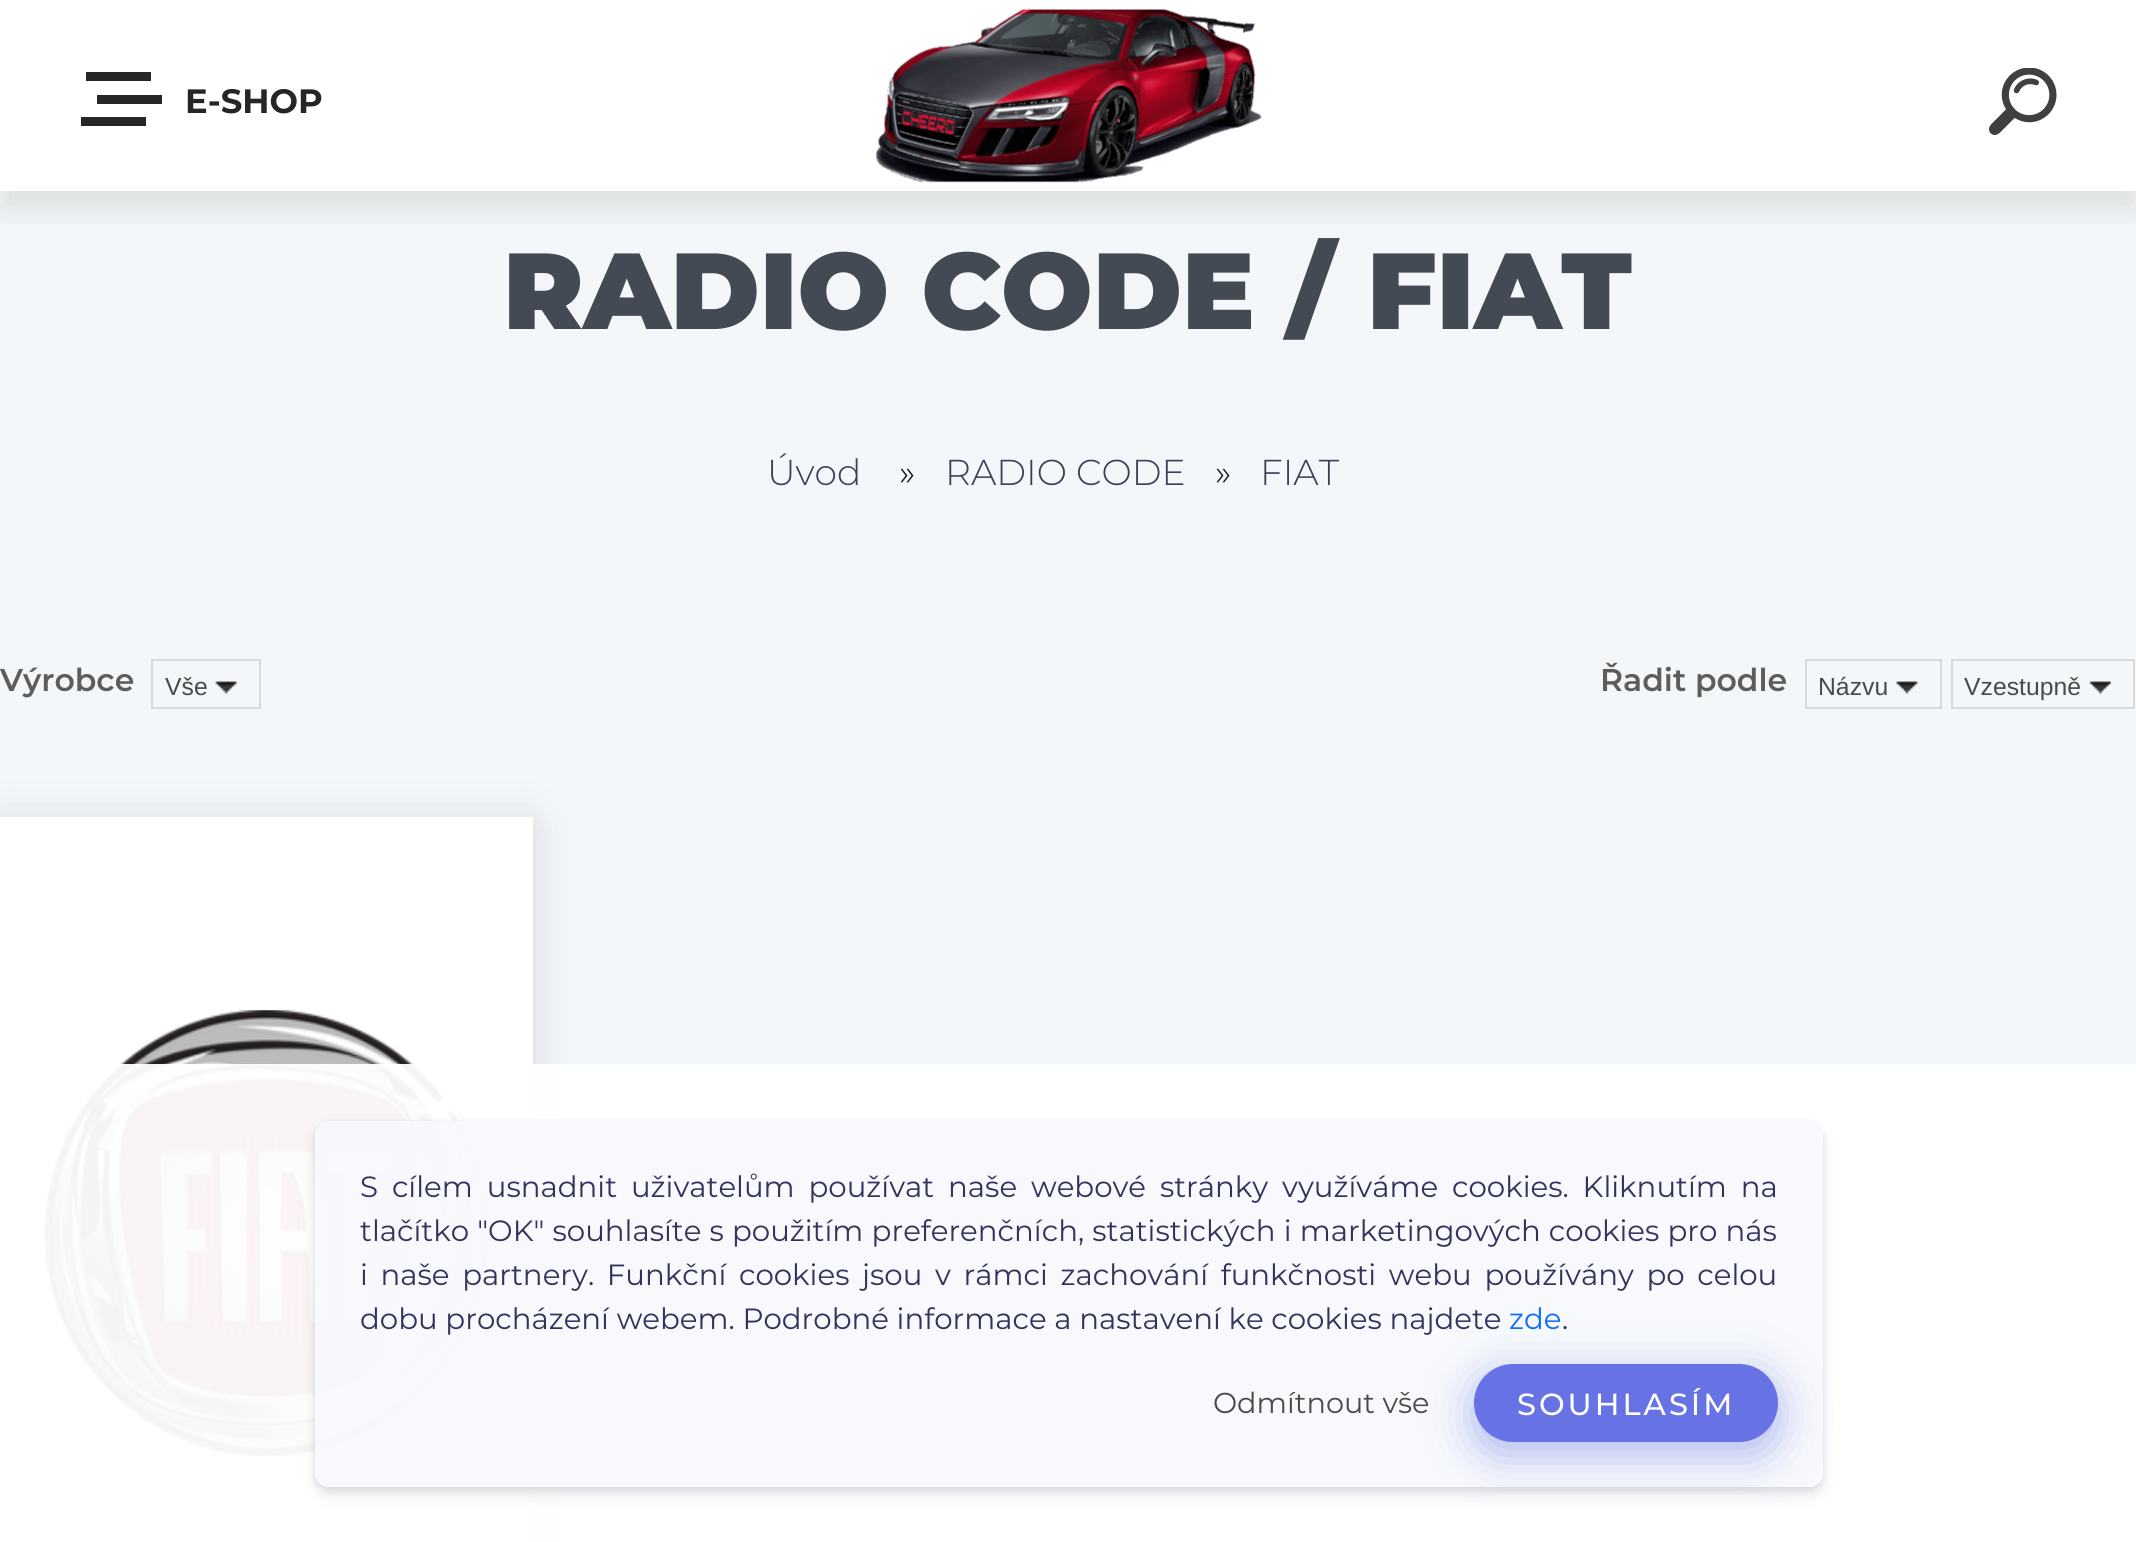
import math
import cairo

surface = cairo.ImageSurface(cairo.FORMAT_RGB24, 2136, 1542)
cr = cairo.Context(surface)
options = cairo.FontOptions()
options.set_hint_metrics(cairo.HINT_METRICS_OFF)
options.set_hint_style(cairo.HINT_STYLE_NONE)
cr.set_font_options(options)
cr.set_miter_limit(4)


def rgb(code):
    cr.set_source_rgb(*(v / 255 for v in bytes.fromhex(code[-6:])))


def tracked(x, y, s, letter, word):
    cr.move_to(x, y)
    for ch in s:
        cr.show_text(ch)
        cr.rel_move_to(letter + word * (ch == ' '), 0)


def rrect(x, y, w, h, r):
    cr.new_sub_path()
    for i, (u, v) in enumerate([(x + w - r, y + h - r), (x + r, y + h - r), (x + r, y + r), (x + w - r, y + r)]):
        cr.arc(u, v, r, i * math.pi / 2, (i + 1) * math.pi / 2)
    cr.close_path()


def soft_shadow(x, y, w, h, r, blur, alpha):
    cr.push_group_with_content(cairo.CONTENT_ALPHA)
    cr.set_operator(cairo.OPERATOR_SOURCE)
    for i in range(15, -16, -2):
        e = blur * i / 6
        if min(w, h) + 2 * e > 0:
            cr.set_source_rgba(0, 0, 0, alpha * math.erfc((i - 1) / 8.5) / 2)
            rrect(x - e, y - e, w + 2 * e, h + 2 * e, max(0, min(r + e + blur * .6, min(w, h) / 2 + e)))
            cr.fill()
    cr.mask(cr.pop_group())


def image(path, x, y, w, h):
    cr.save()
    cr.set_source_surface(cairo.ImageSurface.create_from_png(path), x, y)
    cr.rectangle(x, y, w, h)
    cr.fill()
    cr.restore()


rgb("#ffffff")
cr.paint()
rgb("#f4f7f9")
cr.rectangle(0, 191, 2136, 1351)
cr.fill()
cr.save()
cr.rectangle(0, 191, 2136, 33)
cr.clip()
rgb("#000000")
soft_shadow(0, 18, 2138, 191, 0, 18, 0.1)
cr.restore()
for x, y, w, h, color in [
    (86, 72, 65, 9, "#262626"),
    (97, 95, 65, 9, "#262626"),
    (81, 117, 65, 9, "#262626"),
]:
    rgb(color)
    cr.rectangle(x, y, w, h)
    cr.fill()
image("img/1.png", 876, 9, 386, 174)
image("img/2.png", 1989, 68, 68, 67)
cr.rectangle(152, 660, 108, 48)
rgb("#d9d9d9")
cr.stroke()
image("img/3.png", 215, 681, 22, 13)
cr.rectangle(1806, 660, 135, 48)
cr.stroke()
image("img/4.png", 1896, 681, 22, 13)
cr.rectangle(1952, 660, 182, 48)
cr.stroke()
image("img/5.png", 2089, 681, 23, 13)
rgb("#000000")
soft_shadow(0, 828, 533, 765, 0, 17, 0.07)
rgb("#32325d")
soft_shadow(0, 821, 533, 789, 0, 22.5, 0.1)
rgb("#ffffff")
cr.rectangle(0, 817, 533, 725)
cr.fill()
image("img/6.png", 45, 1010, 444, 447)
cr.set_source_rgba(1, 1, 1, 0.95)
cr.rectangle(45, 1064, 2091, 478)
cr.fill()
cr.save()
cr.set_fill_rule(cairo.FILL_RULE_EVEN_ODD)
cr.new_path()
cr.move_to(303, 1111)
cr.line_to(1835, 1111)
cr.line_to(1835, 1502)
cr.line_to(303, 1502)
cr.close_path()
cr.move_to(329, 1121)
cr.line_to(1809, 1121)
cr.curve_to(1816.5, 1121, 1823, 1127.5, 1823, 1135)
cr.line_to(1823, 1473)
cr.curve_to(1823, 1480.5, 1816.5, 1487, 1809, 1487)
cr.line_to(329, 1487)
cr.curve_to(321.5, 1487, 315, 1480.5, 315, 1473)
cr.line_to(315, 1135)
cr.curve_to(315, 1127.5, 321.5, 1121, 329, 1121)
cr.close_path()
cr.clip()
rgb("#000000")
soft_shadow(315, 1123, 1508, 367, 14, 3.5, 0.08)
cr.restore()
cr.save()
cr.set_fill_rule(cairo.FILL_RULE_EVEN_ODD)
cr.new_path()
cr.move_to(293, 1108)
cr.line_to(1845, 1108)
cr.line_to(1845, 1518)
cr.line_to(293, 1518)
cr.close_path()
cr.move_to(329, 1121)
cr.line_to(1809, 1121)
cr.curve_to(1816.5, 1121, 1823, 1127.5, 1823, 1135)
cr.line_to(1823, 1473)
cr.curve_to(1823, 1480.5, 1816.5, 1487, 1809, 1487)
cr.line_to(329, 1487)
cr.curve_to(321.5, 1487, 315, 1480.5, 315, 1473)
cr.line_to(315, 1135)
cr.curve_to(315, 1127.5, 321.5, 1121, 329, 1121)
cr.close_path()
cr.clip()
rgb("#32325d")
soft_shadow(315, 1130, 1508, 366, 14, 7, 0.11)
cr.restore()
cr.set_source_rgba(0.965, 0.976, 0.988, 0.9)
rrect(315, 1121, 1508, 366, 14)
cr.fill()
rgb("#3a54d6")
soft_shadow(1474, 1375, 304, 79, 39.5, 22.5, 0.4)
rgb("#6772e5")
rrect(1474, 1364, 304, 78, 39)
cr.fill()
cr.select_font_face("Montserrat", cairo.FONT_SLANT_NORMAL, cairo.FONT_WEIGHT_BOLD)
cr.set_font_size(33.75)
rgb("#262626")
cr.move_to(185, 113)
cr.show_text("E-SHOP")
cr.select_font_face("Montserrat Black")
cr.set_font_size(108)
rgb("#434a54")
cr.move_to(503, 329)
cr.show_text("RADIO CODE / FIAT")
cr.select_font_face("Montserrat Light")
cr.set_font_size(36)
rgb("#3f3d59")
cr.move_to(767, 485)
cr.show_text("Úvod")
rgb("#101010")
cr.move_to(899, 485)
cr.show_text("»")
rgb("#3f3d59")
cr.move_to(945, 485)
cr.show_text("RADIO CODE")
rgb("#101010")
cr.move_to(1215, 485)
cr.show_text("»")
rgb("#3f3d59")
cr.move_to(1260, 485)
cr.show_text("FIAT")
cr.select_font_face("Montserrat SemiBold")
cr.set_font_size(31.5)
rgb("#5d5d5d")
cr.move_to(0, 691)
cr.show_text("Výrobce")
cr.select_font_face("Liberation Sans")
cr.set_font_size(24.75)
rgb("#4a4a4a")
cr.move_to(165, 695)
cr.show_text("Vše")
cr.select_font_face("Montserrat SemiBold")
cr.set_font_size(31.5)
rgb("#5d5d5d")
cr.move_to(1600, 691)
cr.show_text("Řadit podle")
cr.select_font_face("Liberation Sans")
cr.set_font_size(24.75)
rgb("#4a4a4a")
cr.move_to(1818, 695)
cr.show_text("Názvu")
cr.move_to(1964, 695)
cr.show_text("Vzestupně")
cr.select_font_face("Montserrat")
cr.set_font_size(29.25)
rgb("#32325d")
tracked(360, 1197, "S cílem usnadnit uživatelům používat naše webové stránky využíváme cookies. Kliknutím na", 0, 6.25)
tracked(360, 1241, "tlačítko \"OK\" souhlasíte s použitím preferenčních, statistických i marketingových cookies pro nás", 0, 0.5)
tracked(360, 1285, "i naše partnery. Funkční cookies jsou v rámci zachování funkčnosti webu používány po celou", 0, 5)
cr.move_to(360, 1329)
cr.show_text("dobu procházení webem. Podrobné informace a nastavení ke cookies najdete")
rgb("#0d6efd")
cr.move_to(1509, 1329)
cr.show_text("zde")
rgb("#32325d")
cr.move_to(1562, 1329)
cr.show_text(".")
cr.set_font_size(28.75)
rgb("#4a4a4a")
cr.move_to(1213, 1413)
cr.show_text("Odmítnout vše")
cr.select_font_face("Montserrat Medium")
cr.set_font_size(30.5)
rgb("#ffffff")
tracked(1517, 1415, "SOUHLASÍM", 3, 0)
surface.write_to_png("page.png")
